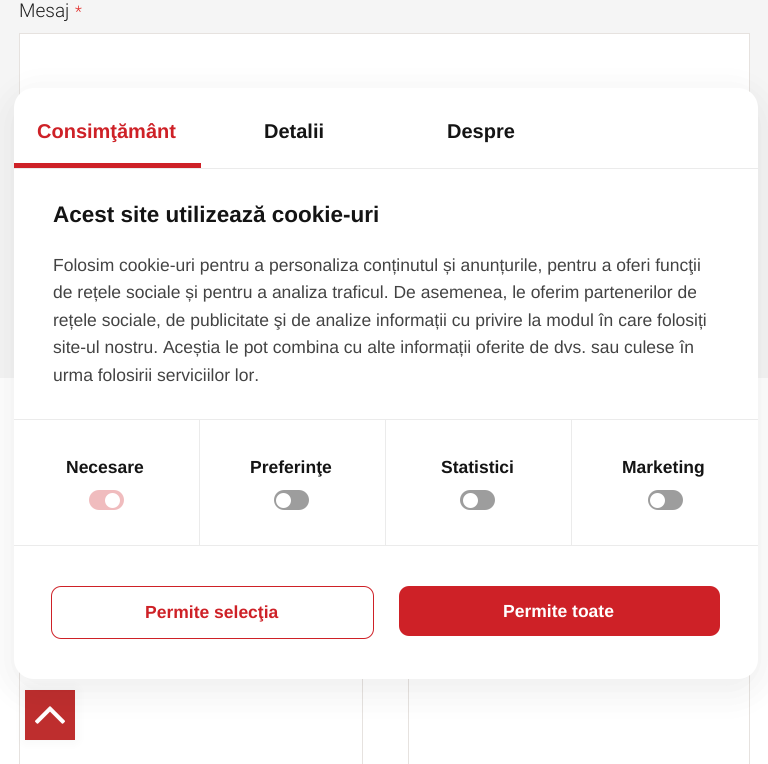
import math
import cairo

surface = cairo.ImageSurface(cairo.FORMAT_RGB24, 768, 764)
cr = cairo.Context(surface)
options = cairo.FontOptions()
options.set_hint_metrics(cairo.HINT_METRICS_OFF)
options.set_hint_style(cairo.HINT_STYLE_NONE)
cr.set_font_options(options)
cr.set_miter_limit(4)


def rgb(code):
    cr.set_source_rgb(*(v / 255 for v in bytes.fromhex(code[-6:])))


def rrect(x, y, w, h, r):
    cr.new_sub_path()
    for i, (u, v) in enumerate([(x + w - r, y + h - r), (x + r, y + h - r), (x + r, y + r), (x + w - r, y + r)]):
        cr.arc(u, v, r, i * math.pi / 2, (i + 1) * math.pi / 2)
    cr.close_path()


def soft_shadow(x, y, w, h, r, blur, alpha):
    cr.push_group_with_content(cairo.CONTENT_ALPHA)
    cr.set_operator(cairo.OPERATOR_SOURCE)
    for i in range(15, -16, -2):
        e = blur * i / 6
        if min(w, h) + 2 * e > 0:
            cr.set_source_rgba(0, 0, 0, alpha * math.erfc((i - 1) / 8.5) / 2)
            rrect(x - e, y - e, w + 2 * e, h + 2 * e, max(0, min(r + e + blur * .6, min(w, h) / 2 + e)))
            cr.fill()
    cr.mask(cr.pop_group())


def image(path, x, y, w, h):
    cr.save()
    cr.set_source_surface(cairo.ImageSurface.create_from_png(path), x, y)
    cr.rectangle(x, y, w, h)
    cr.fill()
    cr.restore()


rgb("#ffffff")
cr.paint()
rgb("#f5f5f5")
cr.rectangle(0, 0, 768, 378)
cr.fill()
rgb("#ffffff")
cr.rectangle(20, 34, 729, 60)
cr.fill()
cr.rectangle(19.5, 33.5, 730, 107)
rgb("#e6e2df")
cr.set_line_width(1)
cr.stroke()
cr.rectangle(19.5, 420.5, 343, 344)
cr.stroke()
cr.rectangle(408.5, 420.5, 341, 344)
cr.stroke()
rgb("#000000")
soft_shadow(25, 690, 50, 50, 0, 6, 0.05)
rgb("#be2e2e")
cr.rectangle(25, 690, 50, 50)
cr.fill()
image("img/1.png", 35, 706, 30, 18)
rgb("#000000")
soft_shadow(14, 98, 744, 591, 20, 20, 0.08)
rgb("#ffffff")
rrect(14, 88, 744, 591, 20)
cr.fill()
for x, y, w, h, color in [
    (14, 168, 744, 1, "#ebebeb"),
    (14, 163, 187, 5, "#ce2127"),
    (14, 419, 744, 1, "#ebebeb"),
    (14, 545, 744, 1, "#ebebeb"),
    (199, 420, 1, 125, "#ebebeb"),
]:
    rgb(color)
    cr.rectangle(x, y, w, h)
    cr.fill()
rgb("#f0bcbe")
rrect(89, 490, 35, 20, 10)
cr.fill()
rgb("#ffffff")
cr.arc(112.5, 500.5, 7.5, 0, 2 * math.pi)
cr.fill()
rgb("#ebebeb")
cr.rectangle(385, 420, 1, 125)
cr.fill()
rgb("#9d9d9d")
rrect(274, 490, 35, 20, 10)
cr.fill()
rgb("#ffffff")
cr.arc(283.5, 500.5, 7.5, 0, 2 * math.pi)
cr.fill()
rgb("#ebebeb")
cr.rectangle(571, 420, 1, 125)
cr.fill()
rgb("#9d9d9d")
rrect(460, 490, 35, 20, 10)
cr.fill()
rgb("#ffffff")
cr.arc(470.5, 500.5, 7.5, 0, 2 * math.pi)
cr.fill()
rgb("#9d9d9d")
rrect(648, 490, 35, 20, 10)
cr.fill()
rgb("#ffffff")
cr.arc(657.5, 500.5, 7.5, 0, 2 * math.pi)
cr.fill()
rrect(51.5, 586.5, 322, 52, 9.5)
rgb("#ce2127")
cr.stroke()
rrect(399, 586, 321, 50, 10)
cr.fill()
cr.select_font_face("Roboto Light")
cr.set_font_size(19)
rgb("#202020")
cr.move_to(19, 17)
cr.show_text("Mesaj")
cr.set_font_size(16)
rgb("#e02b27")
cr.move_to(75, 17)
cr.show_text("*")
cr.select_font_face("Liberation Sans", cairo.FONT_SLANT_NORMAL, cairo.FONT_WEIGHT_BOLD)
cr.set_font_size(20)
rgb("#ce2127")
cr.move_to(37, 138)
cr.show_text("Consimţământ")
rgb("#141414")
cr.move_to(264, 138)
cr.show_text("Detalii")
cr.move_to(447, 138)
cr.show_text("Despre")
cr.set_font_size(22.5)
cr.move_to(53, 222)
cr.show_text("Acest site utilizează cookie-uri")
cr.select_font_face("Liberation Sans")
cr.set_font_size(17.5)
rgb("#434343")
for x, y, s in [
    (53, 271, "Folosim cookie-uri pentru a personaliza conținutul și anunțurile, pentru a oferi funcţii"),
    (53, 298, "de rețele sociale și pentru a analiza traficul. De asemenea, le oferim partenerilor de"),
    (53, 326, "rețele sociale, de publicitate şi de analize informații cu privire la modul în care folosiți"),
    (53, 353, "site-ul nostru. Aceștia le pot combina cu alte informații oferite de dvs. sau culese în"),
    (53, 381, "urma folosirii serviciilor lor."),
]:
    cr.move_to(x, y)
    cr.show_text(s)
cr.select_font_face("Liberation Sans", cairo.FONT_SLANT_NORMAL, cairo.FONT_WEIGHT_BOLD)
rgb("#141414")
for x, y, s in [
    (66, 473, "Necesare"),
    (250, 473, "Preferinţe"),
    (441, 473, "Statistici"),
    (622, 473, "Marketing"),
]:
    cr.move_to(x, y)
    cr.show_text(s)
rgb("#ce2127")
cr.move_to(145, 618)
cr.show_text("Permite selecţia")
rgb("#ffffff")
cr.move_to(503, 617)
cr.show_text("Permite toate")
surface.write_to_png("page.png")
